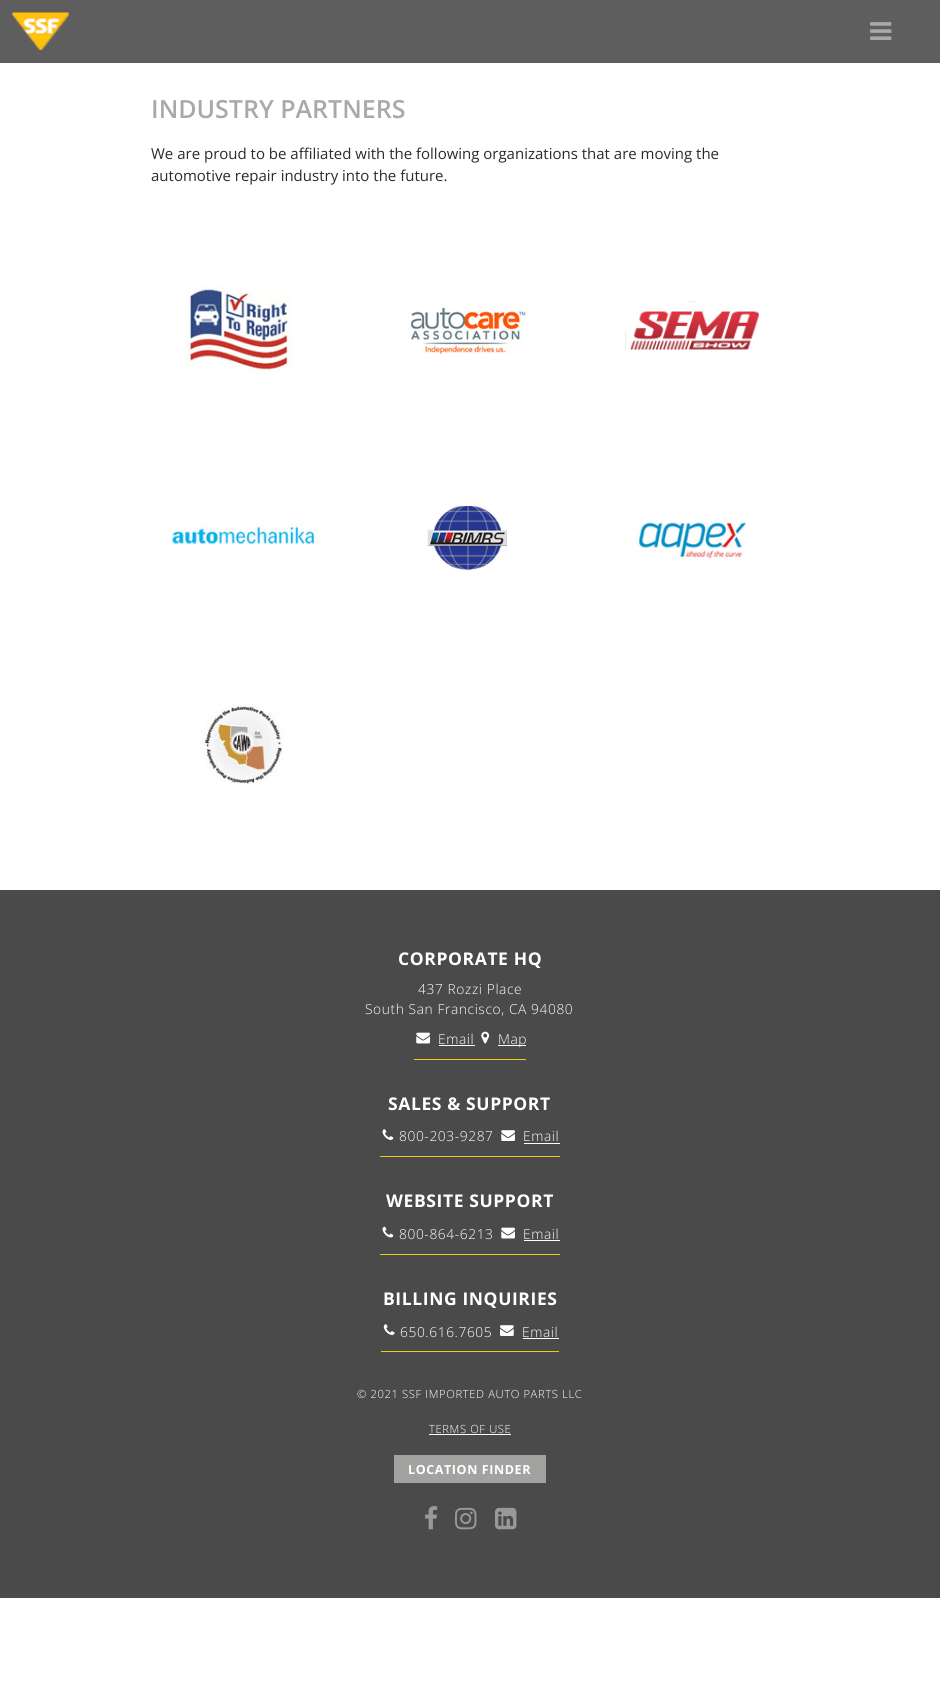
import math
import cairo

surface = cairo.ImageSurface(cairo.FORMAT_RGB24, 940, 1682)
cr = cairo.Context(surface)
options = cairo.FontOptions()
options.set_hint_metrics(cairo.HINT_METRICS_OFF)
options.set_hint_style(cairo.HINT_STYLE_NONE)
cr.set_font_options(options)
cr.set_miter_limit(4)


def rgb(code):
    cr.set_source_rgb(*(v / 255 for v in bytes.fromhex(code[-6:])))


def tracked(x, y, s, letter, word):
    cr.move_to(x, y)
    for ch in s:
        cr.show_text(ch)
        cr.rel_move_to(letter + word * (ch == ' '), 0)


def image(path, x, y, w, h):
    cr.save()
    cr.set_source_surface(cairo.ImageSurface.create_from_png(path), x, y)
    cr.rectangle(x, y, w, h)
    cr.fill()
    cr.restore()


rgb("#ffffff")
cr.paint()
rgb("#5f5e5e")
cr.rectangle(0, 0, 940, 63)
cr.fill()
image("img/1.png", 12, 12, 57, 38)
image("img/2.png", 870, 22, 22, 18)
image("img/3.png", 186, 284, 106, 90)
image("img/4.png", 407, 305, 120, 49)
image("img/5.png", 625, 301, 134, 50)
image("img/6.png", 171, 523, 148, 22)
image("img/7.png", 427, 503, 81, 68)
image("img/8.png", 635, 519, 111, 42)
image("img/9.png", 200, 704, 84, 81)
rgb("#4a4a4a")
cr.rectangle(0, 890, 940, 708)
cr.fill()
rgb("#fac31e")
cr.rectangle(414, 1059, 112, 1)
cr.fill()
image("img/10.png", 416, 1032, 14, 12)
rgb("#ffffff")
cr.rectangle(439, 1045, 36, 1)
cr.fill()
image("img/11.png", 481, 1031, 9, 13)
cr.rectangle(498, 1045, 28, 1)
cr.fill()
rgb("#fac31e")
cr.rectangle(380, 1156, 180, 1)
cr.fill()
image("img/12.png", 382, 1129, 12, 11)
image("img/13.png", 501, 1130, 14, 11)
rgb("#ffffff")
cr.rectangle(524, 1143, 36, 1)
cr.fill()
rgb("#fac31e")
cr.rectangle(380, 1254, 180, 1)
cr.fill()
image("img/14.png", 382, 1226, 12, 12)
image("img/10.png", 501, 1227, 14, 12)
rgb("#ffffff")
cr.rectangle(524, 1240, 36, 1)
cr.fill()
rgb("#fac31e")
cr.rectangle(381, 1351, 178, 1)
cr.fill()
image("img/15.png", 383, 1324, 12, 11)
image("img/16.png", 500, 1325, 14, 11)
for x, y, w, h, color in [
    (523, 1338, 36, 1, "#ffffff"),
    (429, 1434, 82, 1, "#ffffff"),
    (394, 1455, 152, 28, "#a2a2a1"),
]:
    rgb(color)
    cr.rectangle(x, y, w, h)
    cr.fill()
image("img/17.png", 425, 1506, 13, 24)
image("img/18.png", 455, 1507, 22, 23)
image("img/19.png", 495, 1507, 22, 23)
cr.select_font_face("Open Sans SemiBold")
cr.set_font_size(25)
rgb("#a9a9a9")
cr.move_to(151, 118)
cr.show_text("INDUSTRY PARTNERS")
cr.select_font_face("Open Sans")
cr.set_font_size(15)
rgb("#292b2c")
cr.move_to(151, 159)
cr.show_text("We are proud to be affiliated with the following organizations that are moving the")
cr.move_to(151, 181)
cr.show_text("automotive repair industry into the future.")
cr.select_font_face("Open Sans", cairo.FONT_SLANT_NORMAL, cairo.FONT_WEIGHT_BOLD)
cr.set_font_size(17.5)
rgb("#ffffff")
tracked(398, 965, "CORPORATE HQ", 0.6, 0)
cr.select_font_face("Open Sans Light")
cr.set_font_size(13.75)
for x, y, s in [
    (418, 994, "437 Rozzi Place"),
    (365, 1014, "South San Francisco, CA 94080"),
    (438, 1044, "Email"),
    (498, 1044, "Map"),
]:
    tracked(x, y, s, 0.6, 0)
cr.select_font_face("Open Sans", cairo.FONT_SLANT_NORMAL, cairo.FONT_WEIGHT_BOLD)
cr.set_font_size(17.5)
tracked(388, 1110, "SALES & SUPPORT", 0.6, 0)
cr.select_font_face("Open Sans Light")
cr.set_font_size(13.75)
tracked(399, 1141, "800-203-9287", 0.6, 0)
tracked(523, 1141, "Email", 0.6, 0)
cr.select_font_face("Open Sans", cairo.FONT_SLANT_NORMAL, cairo.FONT_WEIGHT_BOLD)
cr.set_font_size(17.5)
tracked(386, 1207, "WEBSITE SUPPORT", 0.6, 0)
cr.select_font_face("Open Sans Light")
cr.set_font_size(13.75)
tracked(399, 1239, "800-864-6213", 0.6, 0)
tracked(523, 1239, "Email", 0.6, 0)
cr.select_font_face("Open Sans", cairo.FONT_SLANT_NORMAL, cairo.FONT_WEIGHT_BOLD)
cr.set_font_size(17.5)
tracked(383, 1305, "BILLING INQUIRIES", 0.6, 0)
cr.select_font_face("Open Sans Light")
cr.set_font_size(13.75)
tracked(400, 1337, "650.616.7605", 0.6, 0)
tracked(522, 1337, "Email", 0.6, 0)
cr.set_font_size(11.25)
tracked(357, 1398, "© 2021 SSF IMPORTED AUTO PARTS LLC", 0.6, 0)
tracked(429, 1433, "TERMS OF USE", 0.6, 0)
cr.select_font_face("Open Sans", cairo.FONT_SLANT_NORMAL, cairo.FONT_WEIGHT_BOLD)
cr.set_font_size(12.5)
tracked(408, 1474, "LOCATION FINDER", 0.6, 0)
surface.write_to_png("page.png")
